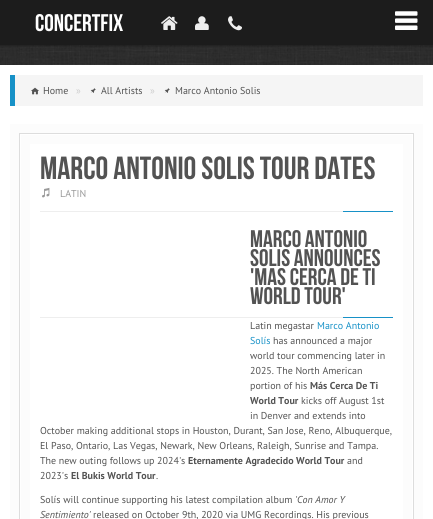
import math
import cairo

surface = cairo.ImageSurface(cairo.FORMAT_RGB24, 433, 519)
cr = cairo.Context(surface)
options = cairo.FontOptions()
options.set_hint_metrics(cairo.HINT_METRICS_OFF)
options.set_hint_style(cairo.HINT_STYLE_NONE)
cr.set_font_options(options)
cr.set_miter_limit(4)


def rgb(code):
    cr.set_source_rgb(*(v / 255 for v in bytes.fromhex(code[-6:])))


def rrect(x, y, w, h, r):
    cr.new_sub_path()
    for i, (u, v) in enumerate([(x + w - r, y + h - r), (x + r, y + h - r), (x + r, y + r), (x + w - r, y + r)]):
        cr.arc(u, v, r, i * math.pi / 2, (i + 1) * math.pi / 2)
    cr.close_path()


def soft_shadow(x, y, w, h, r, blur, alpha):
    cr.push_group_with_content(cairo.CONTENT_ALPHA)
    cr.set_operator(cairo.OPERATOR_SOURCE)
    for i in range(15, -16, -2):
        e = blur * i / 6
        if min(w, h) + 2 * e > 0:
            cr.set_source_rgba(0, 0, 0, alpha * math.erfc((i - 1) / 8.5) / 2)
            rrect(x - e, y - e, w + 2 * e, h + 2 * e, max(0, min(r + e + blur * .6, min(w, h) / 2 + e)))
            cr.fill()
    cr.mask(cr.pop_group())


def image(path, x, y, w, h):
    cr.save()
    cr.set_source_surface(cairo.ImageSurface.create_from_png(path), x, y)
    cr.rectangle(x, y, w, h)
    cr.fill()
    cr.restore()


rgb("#ffffff")
cr.paint()
image("img/5.png", 0, 45, 433, 20)
rgb("#000000")
soft_shadow(0, 1, 433, 45, 0, 1, 0.3)
rgb("#1c1c1c")
cr.rectangle(0, 0, 433, 45)
cr.fill()
image("img/1.png", 161, 16, 17, 14)
image("img/2.png", 195, 16, 14, 14)
image("img/3.png", 228, 16, 14, 15)
image("img/4.png", 395, 11, 23, 19)
rgb("#f5f5f5")
cr.rectangle(15, 75, 408, 31)
cr.fill()
rgb("#1791c7")
cr.rectangle(10, 75, 5, 31)
cr.fill()
image("img/6.png", 31, 87, 8, 8)
image("img/7.png", 90, 88, 6, 5)
image("img/7.png", 164, 88, 6, 5)
cr.rectangle(14.5, 128.5, 404, 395)
rgb("#fcfcfc")
cr.set_line_width(9)
cr.stroke()
cr.rectangle(19.5, 133.5, 394, 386)
rgb("#dddddd")
cr.set_line_width(1)
cr.stroke()
cr.rectangle(25.5, 139.5, 382, 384)
rgb("#fcfcfc")
cr.set_line_width(9)
cr.stroke()
image("img/8.png", 42, 187, 8, 11)
for x, y, w, h, color in [
    (40, 211, 303, 1, "#eeeeee"),
    (343, 211, 50, 1, "#1791c7"),
    (40, 317, 303, 1, "#eeeeee"),
    (343, 317, 50, 1, "#1791c7"),
]:
    rgb(color)
    cr.rectangle(x, y, w, h)
    cr.fill()
cr.select_font_face("Bebas Neue")
cr.set_font_size(24)
rgb("#ffffff")
cr.move_to(35, 31)
cr.show_text("ConcertFix")
cr.select_font_face("PT Sans")
cr.set_font_size(10)
rgb("#535353")
cr.move_to(43, 94)
cr.show_text("Home")
rgb("#cccccc")
cr.move_to(76, 94)
cr.show_text("»")
rgb("#535353")
cr.move_to(101, 94)
cr.show_text("All Artists")
rgb("#cccccc")
cr.move_to(150, 94)
cr.show_text("»")
rgb("#535353")
cr.move_to(175, 94)
cr.show_text("Marco Antonio Solis")
cr.select_font_face("Bebas Neue")
cr.set_font_size(32)
cr.move_to(40, 179)
cr.show_text("Marco Antonio Solis Tour Dates")
cr.select_font_face("PT Sans")
cr.set_font_size(10)
rgb("#999999")
cr.move_to(60, 197)
cr.show_text("LATIN")
cr.select_font_face("Bebas Neue")
cr.set_font_size(24)
rgb("#535353")
for x, y, s in [
    (250, 247, "Marco Antonio"),
    (250, 266, "Solis announces"),
    (250, 285, "'Mas Cerca De Ti"),
    (250, 304, "World Tour'"),
]:
    cr.move_to(x, y)
    cr.show_text(s)
cr.select_font_face("PT Sans")
cr.set_font_size(10)
cr.move_to(250, 329)
cr.show_text("Latin megastar")
rgb("#1791c7")
cr.move_to(317, 329)
cr.show_text("Marco Antonio")
cr.move_to(250, 344)
cr.show_text("Solís")
rgb("#535353")
for x, y, s in [
    (273, 344, "has announced a major"),
    (250, 359, "world tour commencing later in"),
    (250, 374, "2025. The North American"),
    (250, 389, "portion of his"),
]:
    cr.move_to(x, y)
    cr.show_text(s)
cr.select_font_face("PT Sans", cairo.FONT_SLANT_NORMAL, cairo.FONT_WEIGHT_BOLD)
cr.move_to(310, 389)
cr.show_text("Más Cerca De Ti")
cr.move_to(250, 404)
cr.show_text("World Tour")
cr.select_font_face("PT Sans")
for x, y, s in [
    (301, 404, "kicks off August 1st"),
    (250, 419, "in Denver and extends into"),
    (40, 434, "October making additional stops in Houston, Durant, San Jose, Reno, Albuquerque,"),
    (40, 449, "El Paso, Ontario, Las Vegas, Newark, New Orleans, Raleigh, Sunrise and Tampa."),
    (40, 464, "The new outing follows up 2024's"),
]:
    cr.move_to(x, y)
    cr.show_text(s)
cr.select_font_face("PT Sans", cairo.FONT_SLANT_NORMAL, cairo.FONT_WEIGHT_BOLD)
cr.move_to(188, 464)
cr.show_text("Eternamente Agradecido World Tour")
cr.select_font_face("PT Sans")
cr.move_to(347, 464)
cr.show_text("and")
cr.move_to(40, 479)
cr.show_text("2023's")
cr.select_font_face("PT Sans", cairo.FONT_SLANT_NORMAL, cairo.FONT_WEIGHT_BOLD)
cr.move_to(71, 479)
cr.show_text("El Bukis World Tour")
cr.select_font_face("PT Sans")
cr.move_to(156, 479)
cr.show_text(".")
cr.move_to(40, 503)
cr.show_text("Solís will continue supporting his latest compilation album")
cr.select_font_face("PT Sans", cairo.FONT_SLANT_ITALIC)
cr.move_to(295, 503)
cr.show_text("'Con Amor Y")
cr.move_to(40, 518)
cr.show_text("Sentimiento'")
cr.select_font_face("PT Sans")
cr.move_to(93, 518)
cr.show_text("released on October 9th, 2020 via UMG Recordings. His previous")
surface.write_to_png("page.png")
